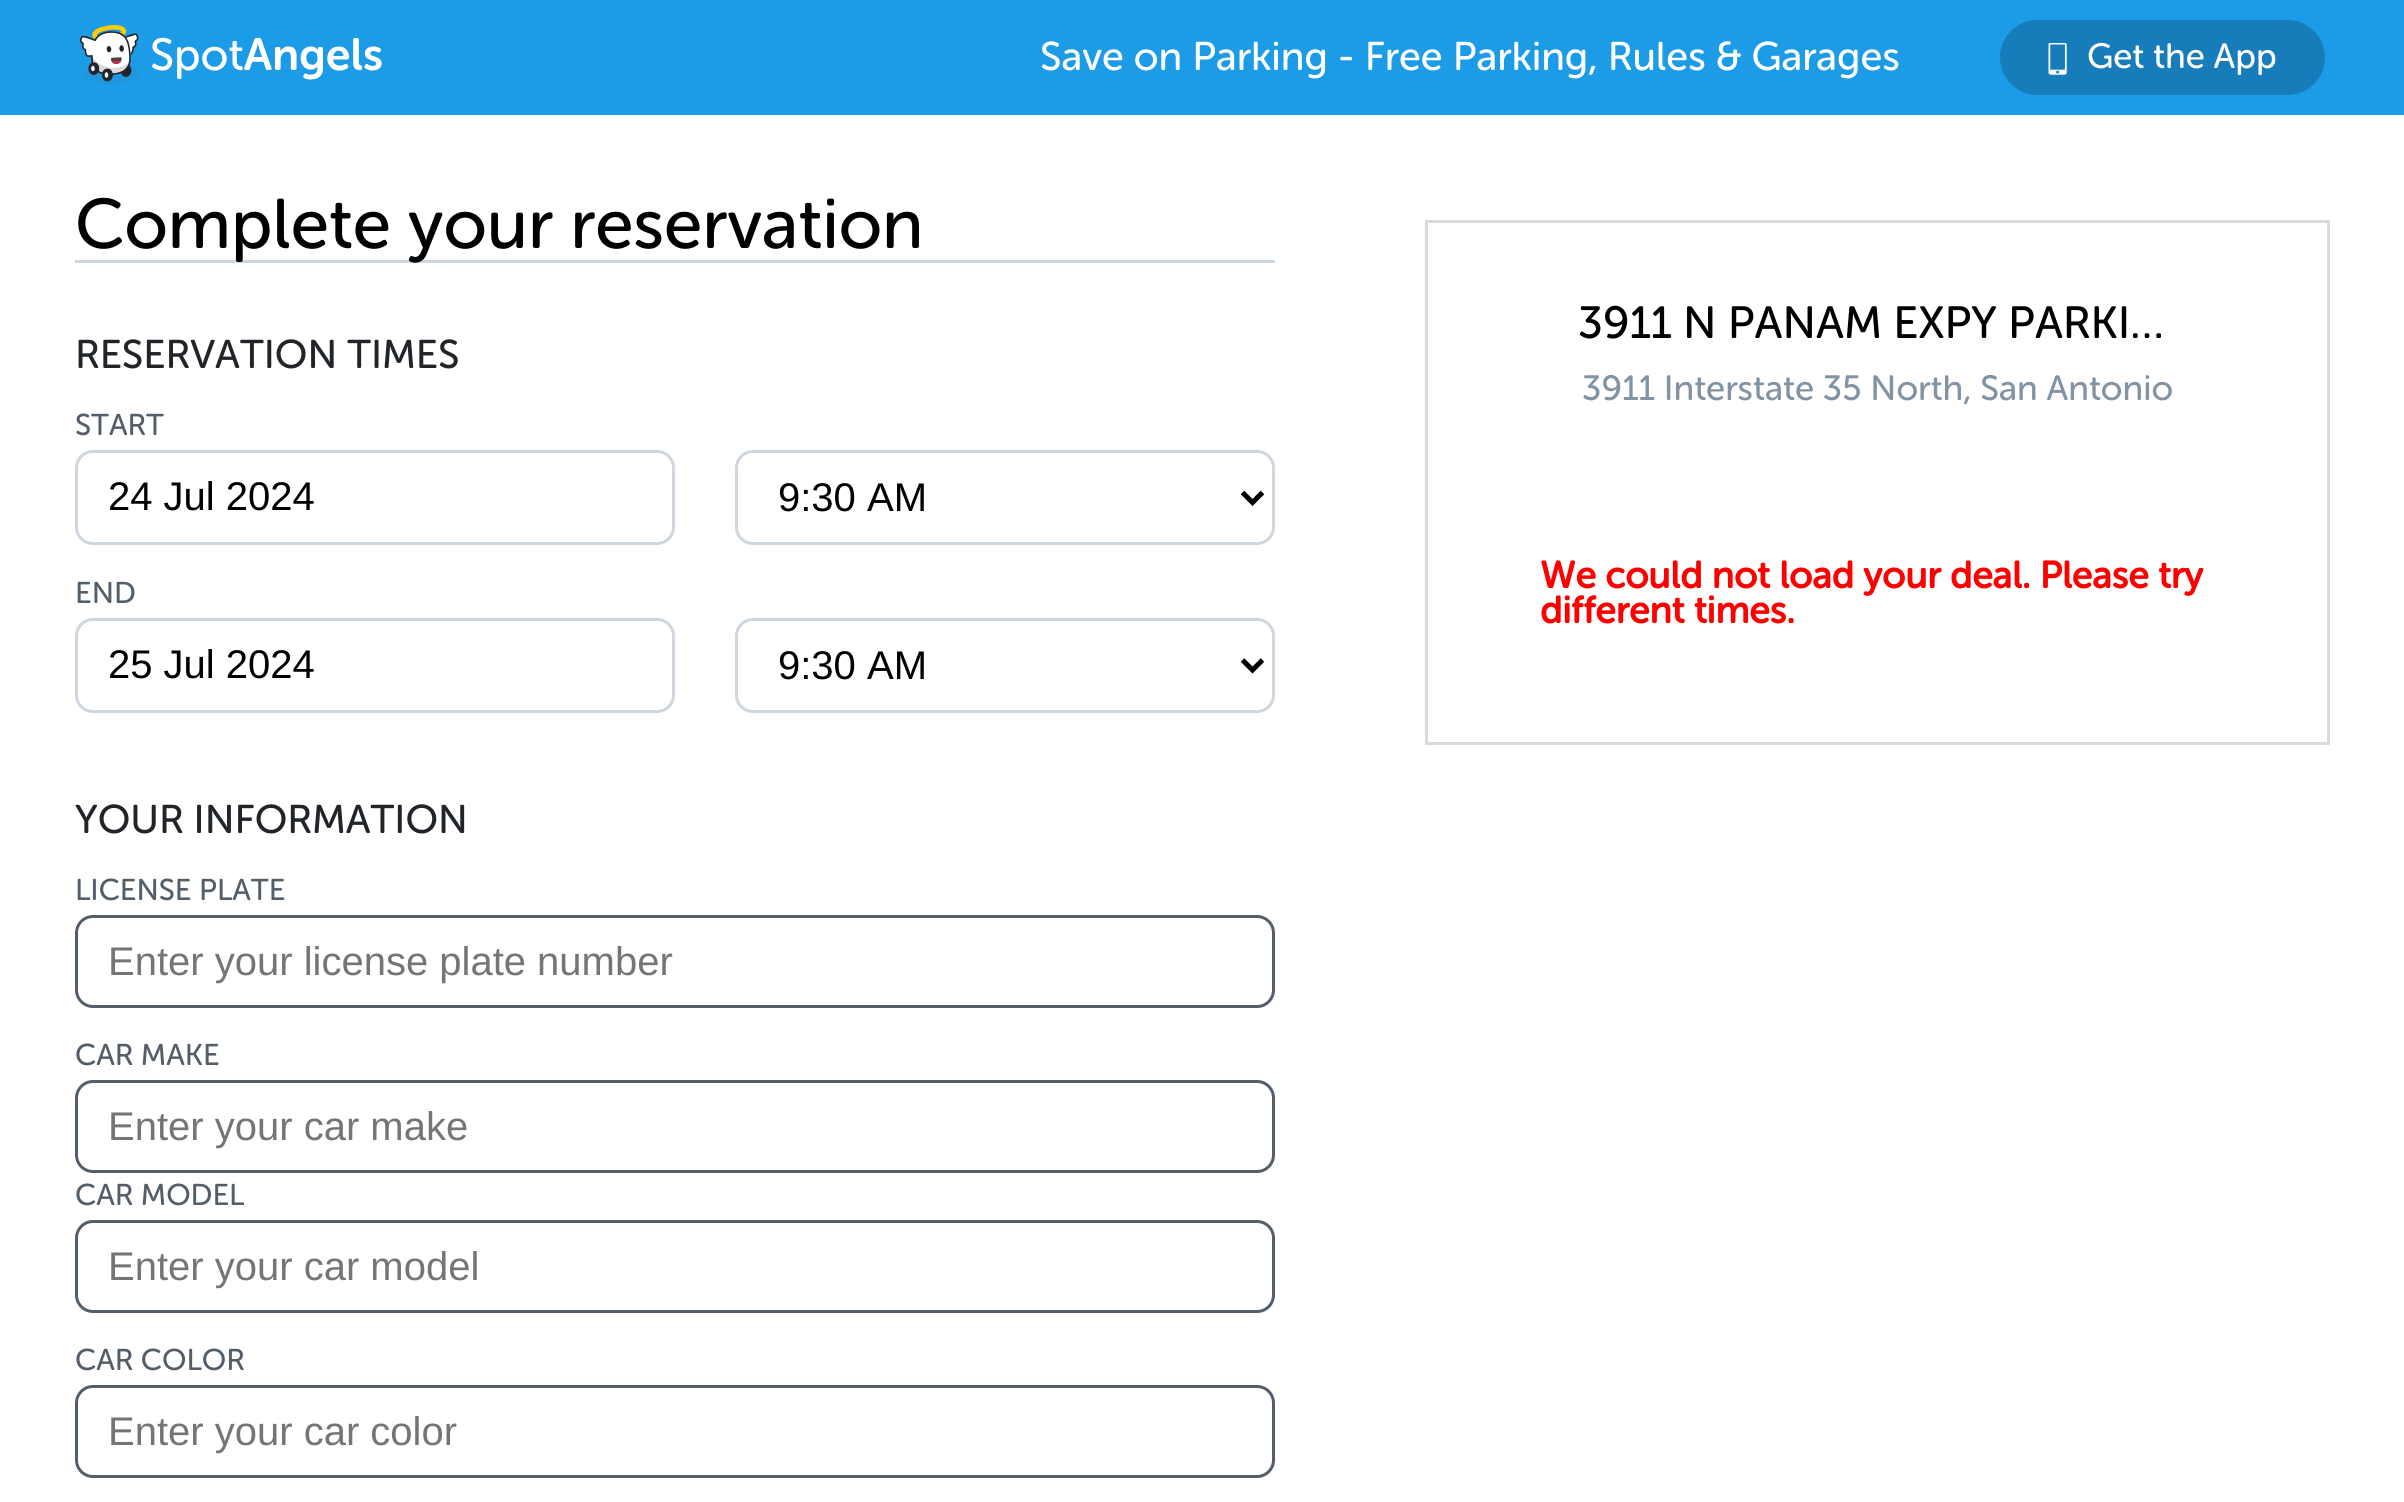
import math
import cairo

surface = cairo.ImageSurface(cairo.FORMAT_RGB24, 2404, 1502)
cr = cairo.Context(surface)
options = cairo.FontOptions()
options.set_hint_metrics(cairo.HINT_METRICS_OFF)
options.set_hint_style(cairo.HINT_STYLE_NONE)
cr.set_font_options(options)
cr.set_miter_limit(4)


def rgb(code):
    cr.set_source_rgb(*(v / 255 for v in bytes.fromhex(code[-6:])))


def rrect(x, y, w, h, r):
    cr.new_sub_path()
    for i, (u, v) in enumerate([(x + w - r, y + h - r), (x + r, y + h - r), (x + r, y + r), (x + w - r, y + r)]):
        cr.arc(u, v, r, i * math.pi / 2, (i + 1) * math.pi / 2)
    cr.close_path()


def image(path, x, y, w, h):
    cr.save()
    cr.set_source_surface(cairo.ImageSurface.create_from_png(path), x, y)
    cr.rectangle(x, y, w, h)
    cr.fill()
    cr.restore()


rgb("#ffffff")
cr.paint()
rgb("#1c9be6")
cr.rectangle(0, 0, 2404, 115)
cr.fill()
image("img/1.png", 80, 25, 302, 60)
rgb("#167dba")
rrect(2000, 20, 325, 75, 37.5)
cr.fill()
image("img/2.png", 2048, 43, 19, 32)
rgb("#ced6de")
cr.rectangle(75, 260, 1200, 3)
cr.fill()
rrect(76.5, 451.5, 597, 92, 16.5)
cr.set_line_width(3)
cr.stroke()
rrect(736.5, 451.5, 537, 92, 16.5)
cr.stroke()
cr.new_path()
cr.move_to(1242.5, 492.5)
cr.line_to(1252.5, 502.5)
cr.line_to(1262.5, 492.5)
rgb("#000000")
cr.set_line_width(5)
cr.stroke()
rrect(76.5, 619.5, 597, 92, 16.5)
rgb("#ced6de")
cr.set_line_width(3)
cr.stroke()
rrect(736.5, 619.5, 537, 92, 16.5)
cr.stroke()
cr.new_path()
cr.move_to(1242.5, 660)
cr.line_to(1252.5, 670)
cr.line_to(1262.5, 660)
rgb("#000000")
cr.set_line_width(5)
cr.stroke()
rrect(76.5, 916.5, 1197, 90, 16.5)
rgb("#545e69")
cr.set_line_width(3)
cr.stroke()
rrect(76.5, 1081.5, 1197, 90, 16.5)
cr.stroke()
rrect(76.5, 1221.5, 1197, 90, 16.5)
cr.stroke()
rrect(76.5, 1386.5, 1197, 90, 16.5)
cr.stroke()
cr.rectangle(1426.5, 221.5, 902, 522)
rgb("#dadada")
cr.stroke()
cr.select_font_face("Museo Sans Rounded")
cr.set_font_size(40)
rgb("#ffffff")
cr.move_to(1040, 70)
cr.show_text("Save on Parking - Free Parking, Rules & Garages")
cr.set_font_size(35)
cr.move_to(2087, 68)
cr.show_text("Get the App")
cr.set_font_size(70)
rgb("#000000")
cr.move_to(75, 248)
cr.show_text("Complete your reservation")
cr.set_font_size(40)
rgb("#212529")
cr.move_to(75, 368)
cr.show_text("RESERVATION TIMES")
cr.set_font_size(30)
rgb("#545e69")
cr.move_to(75, 435)
cr.show_text("START")
cr.select_font_face("Liberation Sans")
cr.set_font_size(40)
rgb("#000000")
cr.move_to(108, 510)
cr.show_text("24 Jul 2024")
cr.move_to(778, 511)
cr.show_text("9:30 AM")
cr.select_font_face("Museo Sans Rounded")
cr.set_font_size(30)
rgb("#545e69")
cr.move_to(75, 603)
cr.show_text("END")
cr.select_font_face("Liberation Sans")
cr.set_font_size(40)
rgb("#000000")
cr.move_to(108, 678)
cr.show_text("25 Jul 2024")
cr.move_to(778, 679)
cr.show_text("9:30 AM")
cr.select_font_face("Museo Sans Rounded")
rgb("#212529")
cr.move_to(75, 833)
cr.show_text("YOUR INFORMATION")
cr.set_font_size(30)
rgb("#545e69")
cr.move_to(75, 900)
cr.show_text("LICENSE PLATE")
cr.select_font_face("Liberation Sans")
cr.set_font_size(40)
rgb("#757575")
cr.move_to(108, 975)
cr.show_text("Enter your license plate number")
cr.select_font_face("Museo Sans Rounded")
cr.set_font_size(30)
rgb("#545e69")
cr.move_to(75, 1065)
cr.show_text("CAR MAKE")
cr.select_font_face("Liberation Sans")
cr.set_font_size(40)
rgb("#757575")
cr.move_to(108, 1140)
cr.show_text("Enter your car make")
cr.select_font_face("Museo Sans Rounded")
cr.set_font_size(30)
rgb("#545e69")
cr.move_to(75, 1205)
cr.show_text("CAR MODEL")
cr.select_font_face("Liberation Sans")
cr.set_font_size(40)
rgb("#757575")
cr.move_to(108, 1280)
cr.show_text("Enter your car model")
cr.select_font_face("Museo Sans Rounded")
cr.set_font_size(30)
rgb("#545e69")
cr.move_to(75, 1370)
cr.show_text("CAR COLOR")
cr.select_font_face("Liberation Sans")
cr.set_font_size(40)
rgb("#757575")
cr.move_to(108, 1445)
cr.show_text("Enter your car color")
cr.select_font_face("Museo Sans Rounded")
cr.set_font_size(45)
rgb("#000000")
cr.move_to(1578, 338)
cr.show_text("3911 N PANAM EXPY PARKI…")
cr.set_font_size(35)
rgb("#8293a3")
cr.move_to(1582, 400)
cr.show_text("3911 Interstate 35 North, San Antonio")
cr.select_font_face("Museo Sans Rounded", cairo.FONT_SLANT_NORMAL, cairo.FONT_WEIGHT_BOLD)
cr.set_font_size(37.5)
rgb("#ff0000")
cr.move_to(1540, 588)
cr.show_text("We could not load your deal. Please try")
cr.move_to(1540, 623)
cr.show_text("different times.")
surface.write_to_png("page.png")
